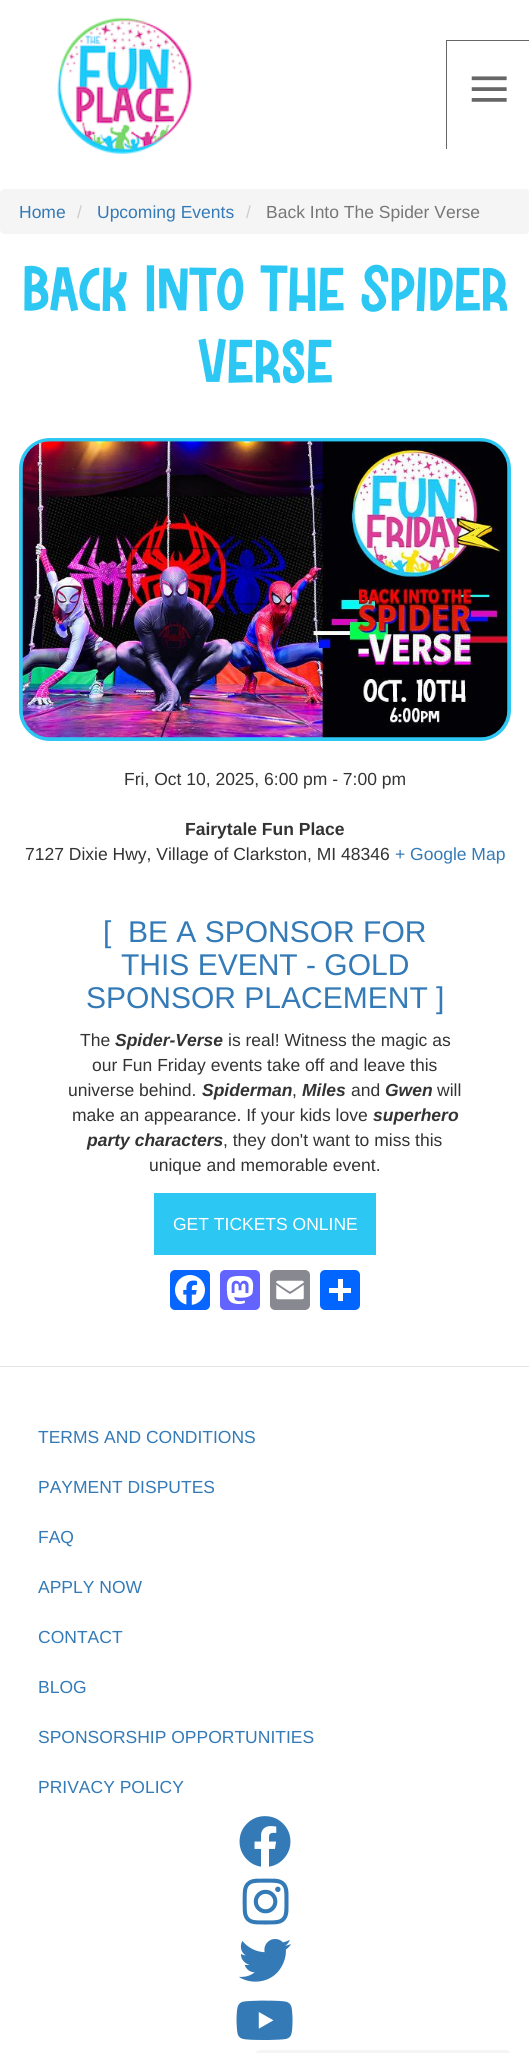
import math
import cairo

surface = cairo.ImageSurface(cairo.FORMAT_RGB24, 529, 2053)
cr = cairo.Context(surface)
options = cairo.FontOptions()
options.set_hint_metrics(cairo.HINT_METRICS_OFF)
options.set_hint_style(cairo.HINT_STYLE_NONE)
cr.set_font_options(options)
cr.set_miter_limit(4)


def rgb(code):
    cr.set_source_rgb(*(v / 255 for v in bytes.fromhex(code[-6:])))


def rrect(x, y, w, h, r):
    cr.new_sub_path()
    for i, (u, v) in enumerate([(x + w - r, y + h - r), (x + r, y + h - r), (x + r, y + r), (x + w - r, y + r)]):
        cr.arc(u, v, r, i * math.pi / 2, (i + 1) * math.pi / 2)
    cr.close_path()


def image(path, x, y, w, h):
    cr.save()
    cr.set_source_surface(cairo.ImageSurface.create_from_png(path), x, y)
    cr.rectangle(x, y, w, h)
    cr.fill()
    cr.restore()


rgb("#ffffff")
cr.paint()
image("img/1.png", 57, 17, 136, 137)
rgb("#666666")
cr.rectangle(446, 40, 83, 1)
cr.fill()
cr.rectangle(446, 40, 1, 109)
cr.fill()
rgb("#f5f5f5")
rrect(0, 189, 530, 45, 5)
cr.fill()
rrect(21, 440, 488, 299, 29)
rgb("#2cc7f2")
cr.set_line_width(4)
cr.stroke()
image("img/2.png", 22, 441, 486, 297)
cr.rectangle(154, 1193, 222, 62)
cr.fill()
rgb("#0866ff")
rrect(170, 1270, 40, 40, 5)
cr.fill()
image("img/3.png", 175, 1275, 30, 30)
rgb("#6364ff")
rrect(220, 1270, 40, 40, 5)
cr.fill()
image("img/4.png", 226, 1275, 28, 29)
rgb("#888990")
rrect(270, 1270, 40, 40, 5)
cr.fill()
image("img/5.png", 276, 1280, 28, 20)
rgb("#0166ff")
rrect(320, 1270, 40, 40, 5)
cr.fill()
for x, y, w, h, color in [
    (338, 1279, 5, 22, "#ffffff"),
    (329, 1288, 22, 5, "#ffffff"),
    (0, 1366, 529, 1, "#e5e5e5"),
]:
    rgb(color)
    cr.rectangle(x, y, w, h)
    cr.fill()
image("img/6.png", 239, 1816, 52, 51)
image("img/7.png", 242, 1878, 47, 47)
image("img/8.png", 238, 1939, 54, 43)
image("img/9.png", 236, 2000, 57, 40)
rgb("#f5f5f5")
rrect(255, 2050, 256, 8, 5)
cr.fill()
cr.select_font_face("Liberation Serif")
cr.set_font_size(75)
rgb("#666666")
cr.move_to(468, 114)
cr.show_text("≡")
cr.select_font_face("Liberation Sans")
cr.set_font_size(17.5)
rgb("#337ab7")
cr.move_to(19, 218)
cr.show_text("Home")
rgb("#cccccc")
cr.move_to(77, 218)
cr.show_text("/")
rgb("#337ab7")
cr.move_to(97, 218)
cr.show_text("Upcoming Events")
rgb("#cccccc")
cr.move_to(246, 218)
cr.show_text("/")
rgb("#777777")
cr.move_to(266, 218)
cr.show_text("Back Into The Spider Verse")
cr.select_font_face("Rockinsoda")
cr.set_font_size(65)
rgb("#2cc7f2")
cr.move_to(22, 311)
cr.show_text("Back Into The Spider")
cr.move_to(198, 383)
cr.show_text("Verse")
cr.select_font_face("Liberation Sans")
cr.set_font_size(17.5)
rgb("#333333")
cr.move_to(124, 785)
cr.show_text("Fri, Oct 10, 2025, 6:00 pm - 7:00 pm")
cr.select_font_face("Liberation Sans", cairo.FONT_SLANT_NORMAL, cairo.FONT_WEIGHT_BOLD)
cr.move_to(185, 835)
cr.show_text("Fairytale Fun Place")
cr.select_font_face("Liberation Sans")
cr.move_to(25, 860)
cr.show_text("7127 Dixie Hwy, Village of Clarkston, MI 48346")
rgb("#337ab7")
cr.move_to(395, 860)
cr.show_text("+ Google Map")
cr.set_font_size(30)
for x, y, s in [
    (103, 942, "[  BE A SPONSOR FOR"),
    (121, 975, "THIS EVENT - GOLD"),
    (86, 1008, "SPONSOR PLACEMENT ]"),
]:
    cr.move_to(x, y)
    cr.show_text(s)
cr.set_font_size(17.5)
rgb("#333333")
cr.move_to(80, 1046)
cr.show_text("The")
cr.select_font_face("Liberation Sans", cairo.FONT_SLANT_ITALIC, cairo.FONT_WEIGHT_BOLD)
cr.move_to(115, 1046)
cr.show_text("Spider-Verse")
cr.select_font_face("Liberation Sans")
for x, y, s in [
    (228, 1046, "is real! Witness the magic as"),
    (92, 1071, "our Fun Friday events take off and leave this"),
    (68, 1096, "universe behind."),
]:
    cr.move_to(x, y)
    cr.show_text(s)
cr.select_font_face("Liberation Sans", cairo.FONT_SLANT_ITALIC, cairo.FONT_WEIGHT_BOLD)
cr.move_to(202, 1096)
cr.show_text("Spiderman")
cr.move_to(302, 1096)
cr.show_text("Miles")
cr.select_font_face("Liberation Sans")
cr.move_to(351, 1096)
cr.show_text("and")
cr.select_font_face("Liberation Sans", cairo.FONT_SLANT_ITALIC, cairo.FONT_WEIGHT_BOLD)
cr.move_to(385, 1096)
cr.show_text("Gwen")
cr.select_font_face("Liberation Sans")
for x, y, s in [
    (437, 1096, "will"),
    (292, 1096, ","),
    (72, 1121, "make an appearance. If your kids love"),
]:
    cr.move_to(x, y)
    cr.show_text(s)
cr.select_font_face("Liberation Sans", cairo.FONT_SLANT_ITALIC, cairo.FONT_WEIGHT_BOLD)
cr.move_to(373, 1121)
cr.show_text("superhero")
cr.move_to(87, 1146)
cr.show_text("party characters")
cr.select_font_face("Liberation Sans")
cr.move_to(223, 1146)
cr.show_text(", they don't want to miss this")
cr.move_to(149, 1171)
cr.show_text("unique and memorable event.")
rgb("#ffffff")
cr.move_to(173, 1230)
cr.show_text("GET TICKETS ONLINE")
rgb("#337ab7")
for x, y, s in [
    (38, 1443, "TERMS AND CONDITIONS"),
    (38, 1493, "PAYMENT DISPUTES"),
    (38, 1543, "FAQ"),
    (38, 1593, "APPLY NOW"),
    (38, 1643, "CONTACT"),
    (38, 1693, "BLOG"),
    (38, 1743, "SPONSORSHIP OPPORTUNITIES"),
    (38, 1793, "PRIVACY POLICY"),
]:
    cr.move_to(x, y)
    cr.show_text(s)
surface.write_to_png("page.png")
